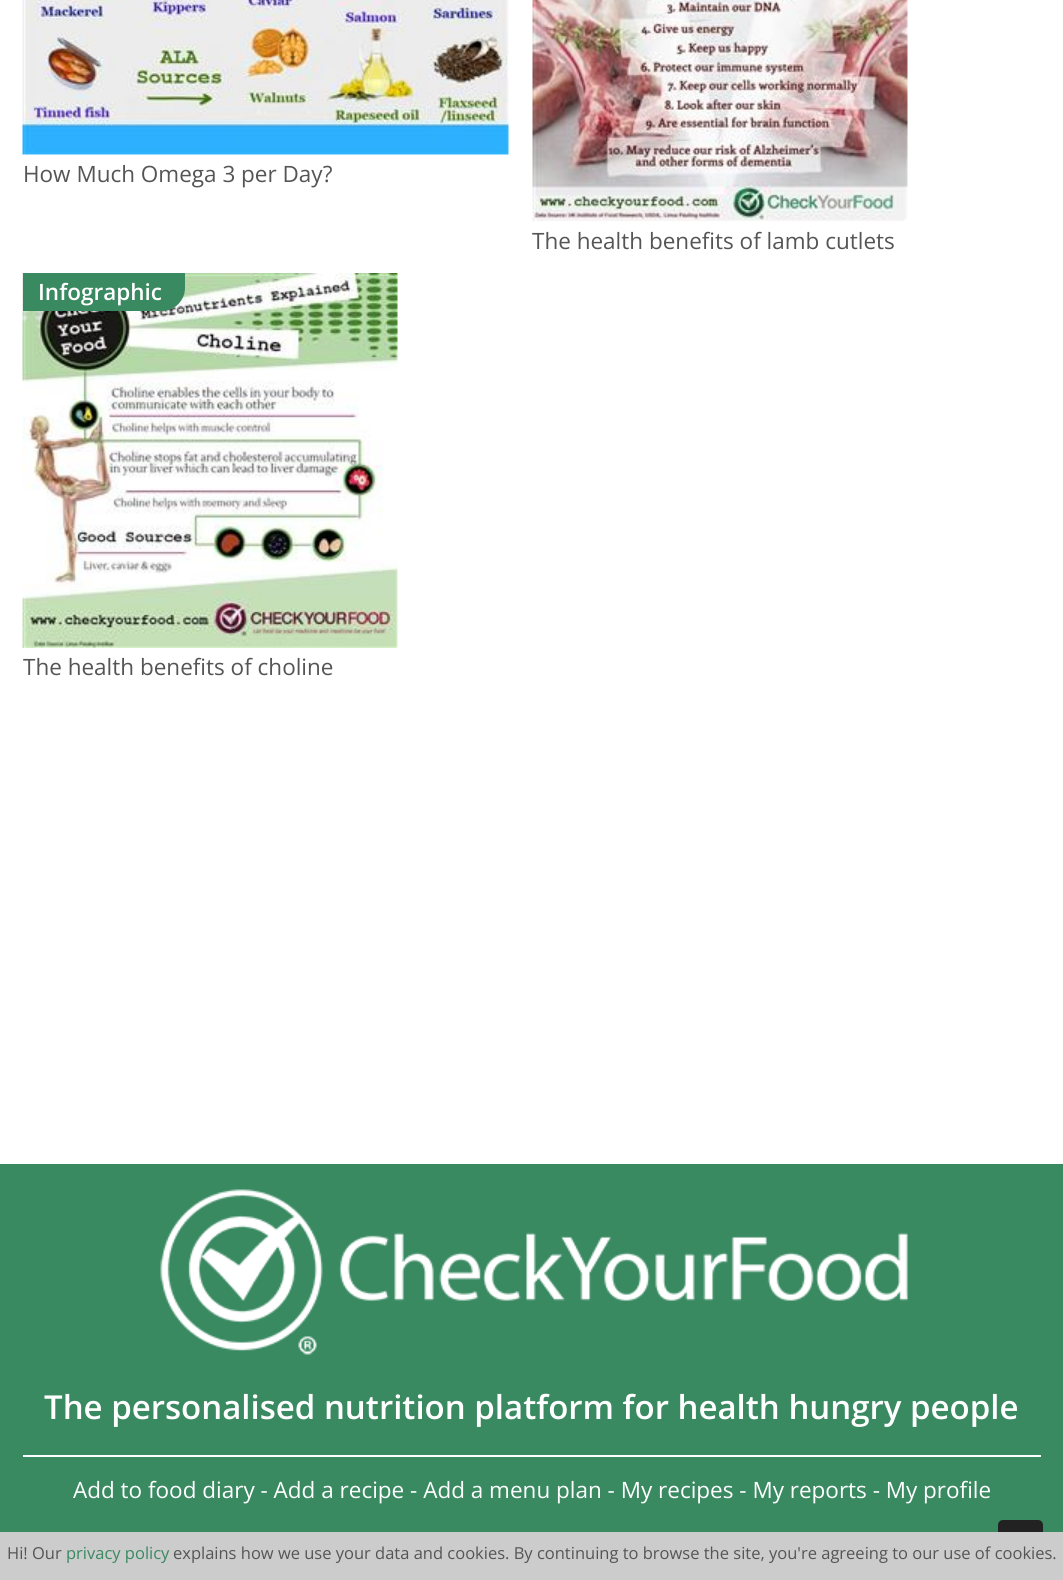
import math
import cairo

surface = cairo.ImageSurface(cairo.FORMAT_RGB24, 1063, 1580)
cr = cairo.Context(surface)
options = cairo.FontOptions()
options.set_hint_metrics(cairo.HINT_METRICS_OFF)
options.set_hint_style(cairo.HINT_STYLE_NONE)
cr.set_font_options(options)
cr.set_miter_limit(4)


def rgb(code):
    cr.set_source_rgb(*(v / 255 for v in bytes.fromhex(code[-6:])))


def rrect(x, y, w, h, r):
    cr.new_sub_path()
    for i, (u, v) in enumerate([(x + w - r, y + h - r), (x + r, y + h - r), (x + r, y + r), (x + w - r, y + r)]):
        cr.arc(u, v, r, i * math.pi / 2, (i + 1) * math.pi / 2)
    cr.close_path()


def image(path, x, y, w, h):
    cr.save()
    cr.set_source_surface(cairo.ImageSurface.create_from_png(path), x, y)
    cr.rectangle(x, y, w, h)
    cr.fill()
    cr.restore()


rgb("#ffffff")
cr.paint()
image("img/1.png", 22, 0, 487, 155)
image("img/2.png", 532, 0, 376, 222)
image("img/3.png", 22, 273, 376, 375)
rgb("#398961")
cr.new_path()
cr.move_to(23, 273)
cr.line_to(185, 273)
cr.line_to(185, 288)
cr.curve_to(185, 300.5, 174.5, 311, 162, 311)
cr.line_to(23, 311)
cr.close_path()
cr.fill()
cr.rectangle(0, 1164, 1063, 368)
cr.fill()
image("img/4.png", 160, 1189, 748, 166)
rgb("#ffffff")
cr.rectangle(23, 1455, 1018, 2)
cr.fill()
rgb("#222222")
rrect(998, 1520, 45, 45, 5)
cr.fill()
rgb("#cccccc")
cr.rectangle(0, 1532, 1063, 48)
cr.fill()
cr.select_font_face("Open Sans")
cr.set_font_size(22.5)
rgb("#555555")
cr.move_to(23, 182)
cr.show_text("How Much Omega 3 per Day?")
cr.move_to(532, 249)
cr.show_text("The health benefits of lamb cutlets")
cr.select_font_face("Open Sans SemiBold")
rgb("#ffffff")
cr.move_to(38, 300)
cr.show_text("Infographic")
cr.select_font_face("Open Sans")
rgb("#555555")
cr.move_to(23, 675)
cr.show_text("The health benefits of choline")
cr.select_font_face("Open Sans SemiBold")
cr.set_font_size(33)
rgb("#ffffff")
cr.move_to(44, 1419)
cr.show_text("The personalised nutrition platform for health hungry people")
cr.select_font_face("Open Sans")
cr.set_font_size(22.5)
cr.move_to(73, 1498)
cr.show_text("Add to food diary - Add a recipe - Add a menu plan - My recipes - My reports - My profile")
cr.set_font_size(16.5)
rgb("#555555")
cr.move_to(7, 1559)
cr.show_text("Hi! Our")
rgb("#398961")
cr.move_to(66, 1559)
cr.show_text("privacy policy")
rgb("#555555")
cr.move_to(173, 1559)
cr.show_text("explains how we use your data and cookies. By continuing to browse the site, you're agreeing to our use of cookies.")
surface.write_to_png("page.png")
